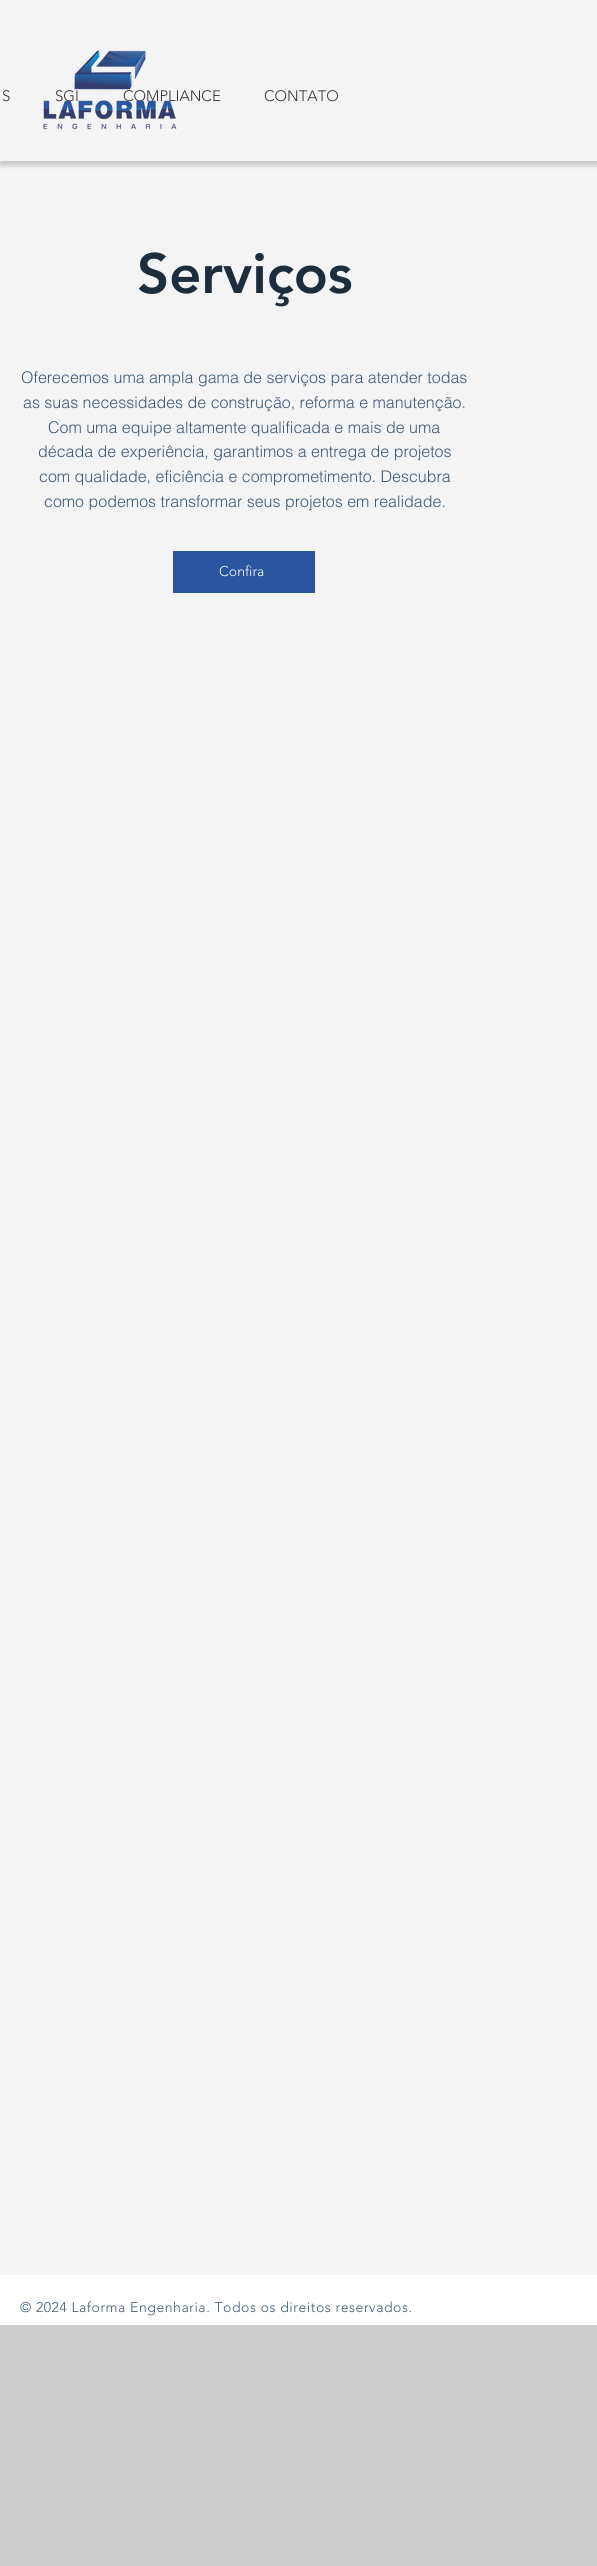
import math
import cairo

surface = cairo.ImageSurface(cairo.FORMAT_RGB24, 597, 2566)
cr = cairo.Context(surface)
options = cairo.FontOptions()
options.set_hint_metrics(cairo.HINT_METRICS_OFF)
options.set_hint_style(cairo.HINT_STYLE_NONE)
cr.set_font_options(options)
cr.set_miter_limit(4)


def rgb(code):
    cr.set_source_rgb(*(v / 255 for v in bytes.fromhex(code[-6:])))


def tracked(x, y, s, letter, word):
    cr.move_to(x, y)
    for ch in s:
        cr.show_text(ch)
        cr.rel_move_to(letter + word * (ch == ' '), 0)


def rrect(x, y, w, h, r):
    cr.new_sub_path()
    for i, (u, v) in enumerate([(x + w - r, y + h - r), (x + r, y + h - r), (x + r, y + r), (x + w - r, y + r)]):
        cr.arc(u, v, r, i * math.pi / 2, (i + 1) * math.pi / 2)
    cr.close_path()


def soft_shadow(x, y, w, h, r, blur, alpha):
    cr.push_group_with_content(cairo.CONTENT_ALPHA)
    cr.set_operator(cairo.OPERATOR_SOURCE)
    for i in range(15, -16, -2):
        e = blur * i / 6
        if min(w, h) + 2 * e > 0:
            cr.set_source_rgba(0, 0, 0, alpha * math.erfc((i - 1) / 8.5) / 2)
            rrect(x - e, y - e, w + 2 * e, h + 2 * e, max(0, min(r + e + blur * .6, min(w, h) / 2 + e)))
            cr.fill()
    cr.mask(cr.pop_group())


def image(path, x, y, w, h):
    cr.save()
    cr.set_source_surface(cairo.ImageSurface.create_from_png(path), x, y)
    cr.rectangle(x, y, w, h)
    cr.fill()
    cr.restore()


rgb("#cdcccd")
cr.paint()
rgb("#f4f4f4")
cr.rectangle(0, 161, 597, 2114)
cr.fill()
rgb("#000000")
soft_shadow(0, 5, 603, 161, 0, 2, 0.17)
rgb("#f4f4f4")
cr.rectangle(0, 0, 597, 161)
cr.fill()
image("img/1.png", 43, 50, 134, 80)
rgb("#2c55a0")
cr.rectangle(173, 551, 142, 42)
cr.fill()
rgb("#ffffff")
cr.rectangle(0, 2275, 597, 50)
cr.fill()
cr.select_font_face("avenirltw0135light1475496 Light")
cr.set_font_size(15)
rgb("#373435")
for x, y, s in [
    (2, 101, "S"),
    (55, 101, "SGI"),
    (123, 101, "COMPLIANCE"),
    (264, 101, "CONTATO"),
]:
    cr.move_to(x, y)
    cr.show_text(s)
cr.select_font_face("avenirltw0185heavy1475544 Black")
cr.set_font_size(56)
rgb("#1e2d3b")
cr.move_to(137, 293)
cr.show_text("Serviços")
cr.select_font_face("helvetica Light")
cr.set_font_size(16)
rgb("#3d5975")
for x, y, s in [
    (21, 383, "Oferecemos uma ampla gama de serviços para atender todas"),
    (23, 408, "as suas necessidades de construção, reforma e manutenção."),
    (48, 433, "Com uma equipe altamente qualificada e mais de uma"),
    (38, 457, "década de experiência, garantimos a entrega de projetos"),
    (39, 482, "com qualidade, eficiência e comprometimento. Descubra"),
    (44, 507, "como podemos transformar seus projetos em realidade."),
]:
    cr.move_to(x, y)
    cr.show_text(s)
cr.select_font_face("avenirltw0135light1475496 Light")
cr.set_font_size(14)
rgb("#ffffff")
cr.move_to(219, 576)
cr.show_text("Confira")
rgb("#3d5975")
tracked(20, 2312, "© 2024 Laforma Engenharia. Todos os direitos reservados.", 0.55, 0)
surface.write_to_png("page.png")
